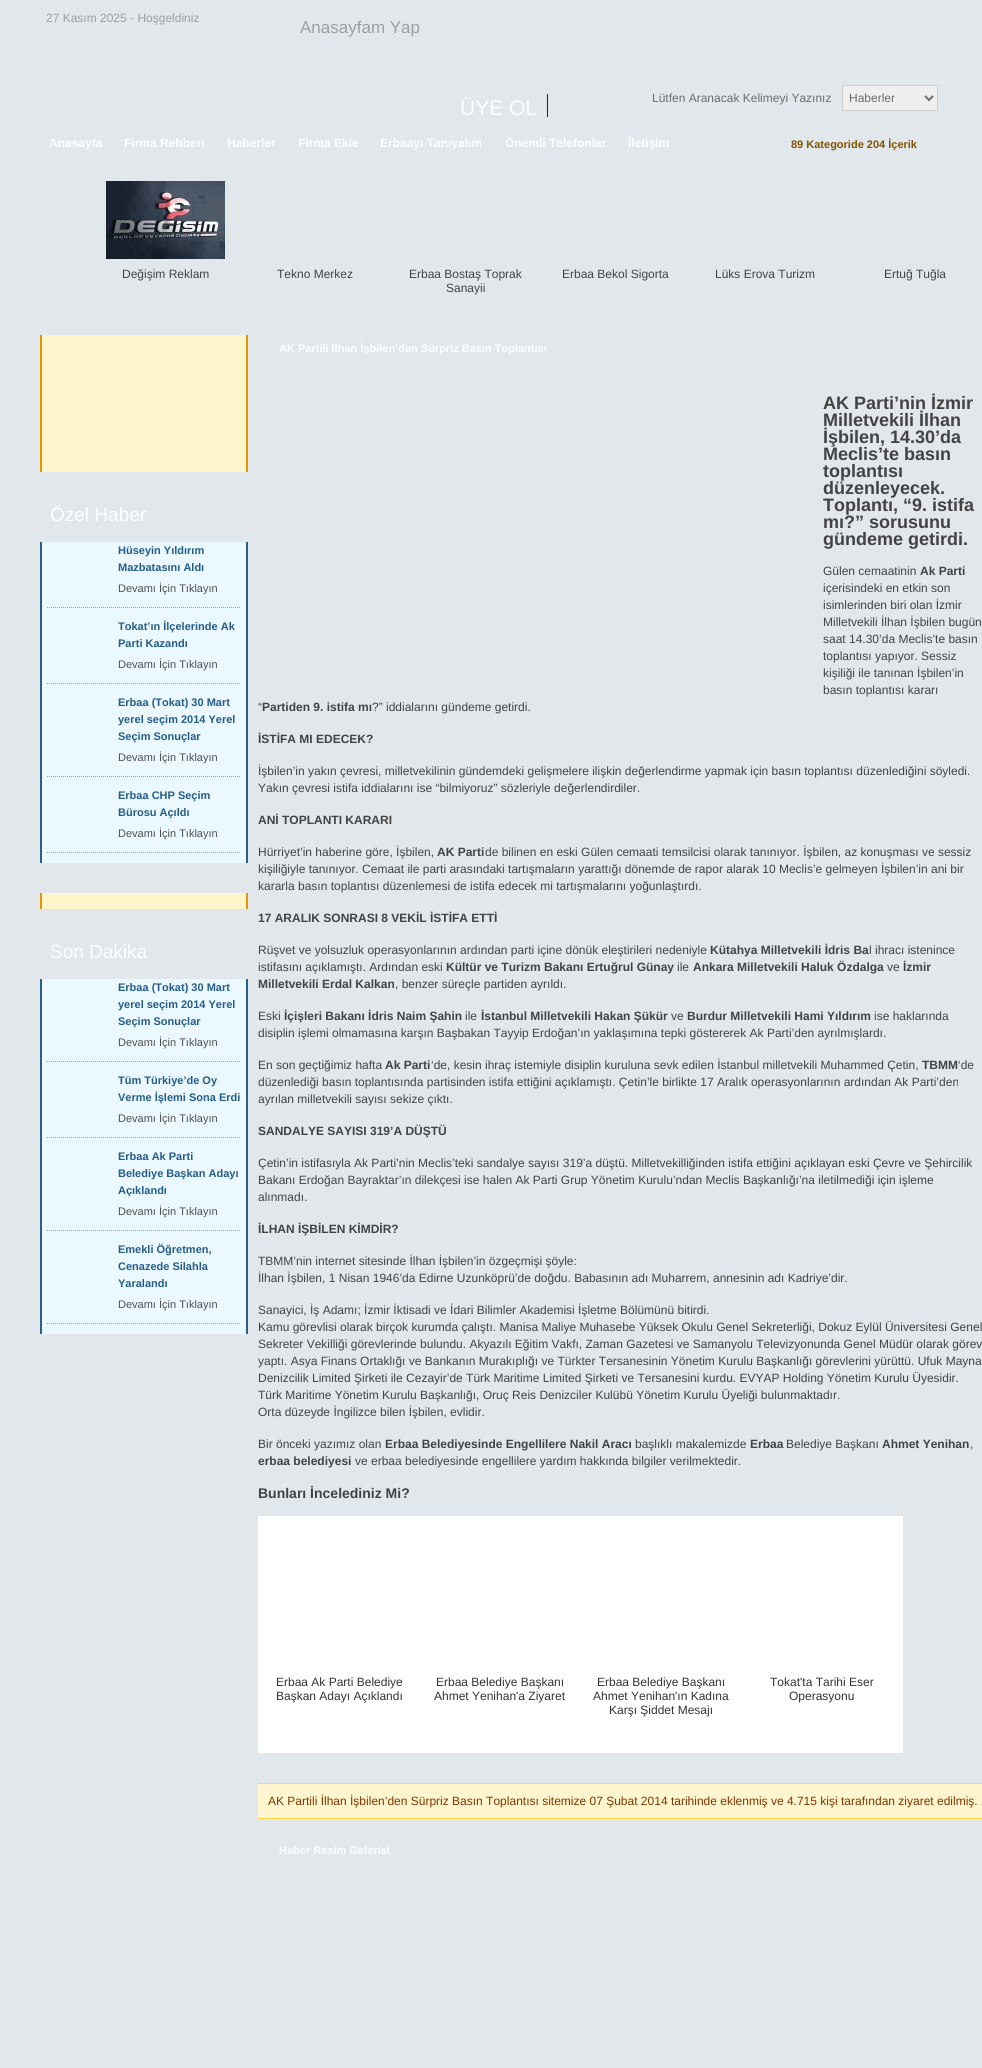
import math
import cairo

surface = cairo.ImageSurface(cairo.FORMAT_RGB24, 982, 2068)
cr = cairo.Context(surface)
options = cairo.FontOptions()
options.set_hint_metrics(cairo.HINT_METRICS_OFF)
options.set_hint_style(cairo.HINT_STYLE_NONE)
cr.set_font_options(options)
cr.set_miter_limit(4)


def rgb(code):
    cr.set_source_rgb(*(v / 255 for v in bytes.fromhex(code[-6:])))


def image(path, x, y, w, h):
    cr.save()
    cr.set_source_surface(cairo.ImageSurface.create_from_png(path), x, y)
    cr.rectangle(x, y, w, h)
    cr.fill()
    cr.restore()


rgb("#e1e7eb")
cr.paint()
rgb("#730303")
cr.rectangle(547, 94, 1, 23)
cr.fill()
rgb("#efefef")
cr.rectangle(842.5, 85.5, 95, 25)
cr.fill_preserve()
rgb("#d0d0d0")
cr.set_line_width(1)
cr.stroke()
cr.new_path()
cr.move_to(925, 96)
cr.line_to(929, 100)
cr.line_to(933, 96)
rgb("#6d6d6d")
cr.set_line_width(2)
cr.stroke()
image("img/1.png", 106, 181, 119, 78)
for x, y, w, h, color in [
    (42, 335, 204, 137, "#fff5cd"),
    (246, 335, 2, 137, "#e89400"),
    (40, 335, 2, 137, "#e89400"),
    (42, 542, 204, 321, "#ebf8ff"),
    (246, 542, 2, 321, "#27608a"),
    (40, 542, 2, 321, "#27608a"),
]:
    rgb(color)
    cr.rectangle(x, y, w, h)
    cr.fill()
cr.new_path()
cr.move_to(47, 607.5)
cr.line_to(241, 607.5)
rgb("#84a8bc")
cr.set_line_width(1)
cr.set_dash([1, 1])
cr.stroke()
cr.new_path()
cr.move_to(47, 683.5)
cr.line_to(241, 683.5)
cr.stroke()
cr.new_path()
cr.move_to(47, 776.5)
cr.line_to(241, 776.5)
cr.stroke()
cr.new_path()
cr.move_to(47, 852.5)
cr.line_to(241, 852.5)
cr.stroke()
for x, y, w, h, color in [
    (42, 893, 204, 16, "#fff5cd"),
    (246, 893, 2, 16, "#e89400"),
    (40, 893, 2, 16, "#e89400"),
    (42, 979, 204, 355, "#ebf8ff"),
    (246, 979, 2, 355, "#27608a"),
    (40, 979, 2, 355, "#27608a"),
]:
    rgb(color)
    cr.rectangle(x, y, w, h)
    cr.fill()
cr.new_path()
cr.move_to(47, 1061.5)
cr.line_to(241, 1061.5)
rgb("#84a8bc")
cr.stroke()
cr.new_path()
cr.move_to(47, 1137.5)
cr.line_to(241, 1137.5)
cr.stroke()
cr.new_path()
cr.move_to(47, 1230.5)
cr.line_to(241, 1230.5)
cr.stroke()
cr.new_path()
cr.move_to(47, 1323.5)
cr.line_to(241, 1323.5)
cr.stroke()
for x, y, w, h, color in [
    (258, 1516, 645, 237, "#ffffff"),
    (258, 1784, 724, 34, "#fff5ce"),
    (258, 1783, 724, 1, "#fed946"),
    (258, 1818, 724, 1, "#fed946"),
]:
    rgb(color)
    cr.rectangle(x, y, w, h)
    cr.fill()
cr.select_font_face("Liberation Sans")
cr.set_font_size(12)
rgb("#9f9f9f")
cr.move_to(46, 22)
cr.show_text("27 Kasım 2025 - Hoşgeldiniz")
cr.set_font_size(17)
cr.move_to(300, 33)
cr.show_text("Anasayfam Yap")
cr.set_font_size(21)
rgb("#ffffff")
cr.move_to(460, 115)
cr.show_text("ÜYE OL")
cr.set_font_size(12)
rgb("#6d6d6d")
cr.move_to(652, 102)
cr.show_text("Lütfen Aranacak Kelimeyi Yazınız")
cr.move_to(849, 102)
cr.show_text("Haberler")
cr.select_font_face("Liberation Sans", cairo.FONT_SLANT_NORMAL, cairo.FONT_WEIGHT_BOLD)
rgb("#ffffff")
for x, y, s in [
    (49, 147, "Anasayfa"),
    (124, 147, "Firma Rehberi"),
    (227, 147, "Haberler"),
    (298, 147, "Firma Ekle"),
    (380, 147, "Erbaayı Tanıyalım"),
    (505, 147, "Önemli Telefonlar"),
    (628, 147, "İletişim"),
]:
    cr.move_to(x, y)
    cr.show_text(s)
cr.set_font_size(11)
rgb("#815501")
cr.move_to(791, 148)
cr.show_text("89 Kategoride 204 İçerik")
cr.select_font_face("Liberation Sans")
cr.set_font_size(12)
rgb("#434343")
for x, y, s in [
    (122, 278, "Değişim Reklam"),
    (277, 278, "Tekno Merkez"),
    (409, 278, "Erbaa Bostaş Toprak"),
    (446, 292, "Sanayii"),
    (562, 278, "Erbaa Bekol Sigorta"),
    (715, 278, "Lüks Erova Turizm"),
    (884, 278, "Ertuğ Tuğla"),
]:
    cr.move_to(x, y)
    cr.show_text(s)
cr.set_font_size(19)
rgb("#ffffff")
cr.move_to(50, 521)
cr.show_text("Özel Haber")
cr.select_font_face("Liberation Sans", cairo.FONT_SLANT_NORMAL, cairo.FONT_WEIGHT_BOLD)
cr.set_font_size(11)
rgb("#245d88")
cr.move_to(118, 554)
cr.show_text("Hüseyin Yıldırım")
cr.move_to(118, 571)
cr.show_text("Mazbatasını Aldı")
cr.select_font_face("Liberation Sans")
rgb("#4f4f4f")
cr.move_to(118, 592)
cr.show_text("Devamı İçin Tıklayın")
cr.select_font_face("Liberation Sans", cairo.FONT_SLANT_NORMAL, cairo.FONT_WEIGHT_BOLD)
rgb("#245d88")
cr.move_to(118, 630)
cr.show_text("Tokat’ın İlçelerinde Ak")
cr.move_to(118, 647)
cr.show_text("Parti Kazandı")
cr.select_font_face("Liberation Sans")
rgb("#4f4f4f")
cr.move_to(118, 668)
cr.show_text("Devamı İçin Tıklayın")
cr.select_font_face("Liberation Sans", cairo.FONT_SLANT_NORMAL, cairo.FONT_WEIGHT_BOLD)
rgb("#245d88")
for x, y, s in [
    (118, 706, "Erbaa (Tokat) 30 Mart"),
    (118, 723, "yerel seçim 2014 Yerel"),
    (118, 740, "Seçim Sonuçlar"),
]:
    cr.move_to(x, y)
    cr.show_text(s)
cr.select_font_face("Liberation Sans")
rgb("#4f4f4f")
cr.move_to(118, 761)
cr.show_text("Devamı İçin Tıklayın")
cr.select_font_face("Liberation Sans", cairo.FONT_SLANT_NORMAL, cairo.FONT_WEIGHT_BOLD)
rgb("#245d88")
cr.move_to(118, 799)
cr.show_text("Erbaa CHP Seçim")
cr.move_to(118, 816)
cr.show_text("Bürosu Açıldı")
cr.select_font_face("Liberation Sans")
rgb("#4f4f4f")
cr.move_to(118, 837)
cr.show_text("Devamı İçin Tıklayın")
cr.set_font_size(19)
rgb("#ffffff")
cr.move_to(50, 958)
cr.show_text("Son Dakika")
cr.select_font_face("Liberation Sans", cairo.FONT_SLANT_NORMAL, cairo.FONT_WEIGHT_BOLD)
cr.set_font_size(11)
rgb("#245d88")
for x, y, s in [
    (118, 991, "Erbaa (Tokat) 30 Mart"),
    (118, 1008, "yerel seçim 2014 Yerel"),
    (118, 1025, "Seçim Sonuçlar"),
]:
    cr.move_to(x, y)
    cr.show_text(s)
cr.select_font_face("Liberation Sans")
rgb("#4f4f4f")
cr.move_to(118, 1046)
cr.show_text("Devamı İçin Tıklayın")
cr.select_font_face("Liberation Sans", cairo.FONT_SLANT_NORMAL, cairo.FONT_WEIGHT_BOLD)
rgb("#245d88")
cr.move_to(118, 1084)
cr.show_text("Tüm Türkiye’de Oy")
cr.move_to(118, 1101)
cr.show_text("Verme İşlemi Sona Erdi")
cr.select_font_face("Liberation Sans")
rgb("#4f4f4f")
cr.move_to(118, 1122)
cr.show_text("Devamı İçin Tıklayın")
cr.select_font_face("Liberation Sans", cairo.FONT_SLANT_NORMAL, cairo.FONT_WEIGHT_BOLD)
rgb("#245d88")
for x, y, s in [
    (118, 1160, "Erbaa Ak Parti"),
    (118, 1177, "Belediye Başkan Adayı"),
    (118, 1194, "Açıklandı"),
]:
    cr.move_to(x, y)
    cr.show_text(s)
cr.select_font_face("Liberation Sans")
rgb("#4f4f4f")
cr.move_to(118, 1215)
cr.show_text("Devamı İçin Tıklayın")
cr.select_font_face("Liberation Sans", cairo.FONT_SLANT_NORMAL, cairo.FONT_WEIGHT_BOLD)
rgb("#245d88")
for x, y, s in [
    (118, 1253, "Emekli Öğretmen,"),
    (118, 1270, "Cenazede Silahla"),
    (118, 1287, "Yaralandı"),
]:
    cr.move_to(x, y)
    cr.show_text(s)
cr.select_font_face("Liberation Sans")
rgb("#4f4f4f")
cr.move_to(118, 1308)
cr.show_text("Devamı İçin Tıklayın")
cr.select_font_face("Liberation Sans", cairo.FONT_SLANT_NORMAL, cairo.FONT_WEIGHT_BOLD)
rgb("#ffffff")
cr.move_to(279, 352)
cr.show_text("AK Partili İlhan İşbilen’den Sürpriz Basın Toplantısı")
cr.set_font_size(18)
rgb("#434343")
for x, y, s in [
    (823, 409, "AK Parti’nin İzmir"),
    (823, 426, "Milletvekili İlhan"),
    (823, 443, "İşbilen, 14.30’da"),
    (823, 460, "Meclis’te basın"),
    (823, 477, "toplantısı"),
    (823, 494, "düzenleyecek."),
    (823, 511, "Toplantı, “9. istifa"),
    (823, 528, "mı?” sorusunu"),
    (823, 545, "gündeme getirdi."),
]:
    cr.move_to(x, y)
    cr.show_text(s)
cr.select_font_face("Liberation Sans")
cr.set_font_size(12)
cr.move_to(823, 575)
cr.show_text("Gülen cemaatinin")
cr.select_font_face("Liberation Sans", cairo.FONT_SLANT_NORMAL, cairo.FONT_WEIGHT_BOLD)
cr.move_to(920, 575)
cr.show_text("Ak Parti")
cr.select_font_face("Liberation Sans")
for x, y, s in [
    (823, 592, "içerisindeki en etkin son"),
    (823, 609, "isimlerinden biri olan İzmir"),
    (823, 626, "Milletvekili İlhan İşbilen bugün"),
    (823, 643, "saat 14.30’da Meclis’te basın"),
    (823, 660, "toplantısı yapıyor. Sessiz"),
    (823, 677, "kişiliği ile tanınan İşbilen’in"),
    (823, 694, "basın toplantısı kararı"),
    (258, 711, "“"),
]:
    cr.move_to(x, y)
    cr.show_text(s)
cr.select_font_face("Liberation Sans", cairo.FONT_SLANT_NORMAL, cairo.FONT_WEIGHT_BOLD)
cr.move_to(262, 711)
cr.show_text("Partiden 9. istifa mı")
cr.select_font_face("Liberation Sans")
cr.move_to(372, 711)
cr.show_text("?” iddialarını gündeme getirdi.")
cr.select_font_face("Liberation Sans", cairo.FONT_SLANT_NORMAL, cairo.FONT_WEIGHT_BOLD)
cr.move_to(258, 743)
cr.show_text("İSTİFA MI EDECEK?")
cr.select_font_face("Liberation Sans")
cr.move_to(258, 775)
cr.show_text("İşbilen’in yakın çevresi, milletvekilinin gündemdeki gelişmelere ilişkin değerlendirme yapmak için basın toplantısı düzenlediğini söyledi.")
cr.move_to(258, 792)
cr.show_text("Yakın çevresi istifa iddialarını ise “bilmiyoruz” sözleriyle değerlendirdiler.")
cr.select_font_face("Liberation Sans", cairo.FONT_SLANT_NORMAL, cairo.FONT_WEIGHT_BOLD)
cr.move_to(258, 824)
cr.show_text("ANİ TOPLANTI KARARI")
cr.select_font_face("Liberation Sans")
cr.move_to(258, 856)
cr.show_text("Hürriyet’in haberine göre, İşbilen,")
cr.select_font_face("Liberation Sans", cairo.FONT_SLANT_NORMAL, cairo.FONT_WEIGHT_BOLD)
cr.move_to(437, 856)
cr.show_text("AK Parti")
cr.select_font_face("Liberation Sans")
for x, y, s in [
    (485, 856, "de bilinen en eski Gülen cemaati temsilcisi olarak tanınıyor. İşbilen, az konuşması ve sessiz"),
    (258, 873, "kişiliğiyle tanınıyor. Cemaat ile parti arasındaki tartışmaların yarattığı dönemde de rapor alarak 10 Meclis’e gelmeyen İşbilen’in ani bir"),
    (258, 890, "kararla basın toplantısı düzenlemesi de istifa edecek mi tartışmalarını yoğunlaştırdı."),
]:
    cr.move_to(x, y)
    cr.show_text(s)
cr.select_font_face("Liberation Sans", cairo.FONT_SLANT_NORMAL, cairo.FONT_WEIGHT_BOLD)
cr.move_to(258, 922)
cr.show_text("17 ARALIK SONRASI 8 VEKİL İSTİFA ETTİ")
cr.select_font_face("Liberation Sans")
cr.move_to(258, 954)
cr.show_text("Rüşvet ve yolsuzluk operasyonlarının ardından parti içine dönük eleştirileri nedeniyle")
cr.select_font_face("Liberation Sans", cairo.FONT_SLANT_NORMAL, cairo.FONT_WEIGHT_BOLD)
cr.move_to(710, 954)
cr.show_text("Kütahya Milletvekili İdris Ba")
cr.select_font_face("Liberation Sans")
cr.move_to(869, 954)
cr.show_text("l ihracı istenince")
cr.move_to(258, 971)
cr.show_text("istifasını açıklamıştı. Ardından eski")
cr.select_font_face("Liberation Sans", cairo.FONT_SLANT_NORMAL, cairo.FONT_WEIGHT_BOLD)
cr.move_to(446, 971)
cr.show_text("Kültür ve Turizm Bakanı Ertuğrul Günay")
cr.select_font_face("Liberation Sans")
cr.move_to(677, 971)
cr.show_text("ile")
cr.select_font_face("Liberation Sans", cairo.FONT_SLANT_NORMAL, cairo.FONT_WEIGHT_BOLD)
cr.move_to(693, 971)
cr.show_text("Ankara Milletvekili Haluk Özdalga")
cr.select_font_face("Liberation Sans")
cr.move_to(887, 971)
cr.show_text("ve")
cr.select_font_face("Liberation Sans", cairo.FONT_SLANT_NORMAL, cairo.FONT_WEIGHT_BOLD)
cr.move_to(903, 971)
cr.show_text("İzmir")
cr.move_to(258, 988)
cr.show_text("Milletvekili Erdal Kalkan")
cr.select_font_face("Liberation Sans")
cr.move_to(395, 988)
cr.show_text(", benzer süreçle partiden ayrıldı.")
cr.move_to(258, 1020)
cr.show_text("Eski")
cr.select_font_face("Liberation Sans", cairo.FONT_SLANT_NORMAL, cairo.FONT_WEIGHT_BOLD)
cr.move_to(284, 1020)
cr.show_text("İçişleri Bakanı İdris Naim Şahin")
cr.select_font_face("Liberation Sans")
cr.move_to(465, 1020)
cr.show_text("ile")
cr.select_font_face("Liberation Sans", cairo.FONT_SLANT_NORMAL, cairo.FONT_WEIGHT_BOLD)
cr.move_to(481, 1020)
cr.show_text("İstanbul Milletvekili Hakan Şükür")
cr.select_font_face("Liberation Sans")
cr.move_to(671, 1020)
cr.show_text("ve")
cr.select_font_face("Liberation Sans", cairo.FONT_SLANT_NORMAL, cairo.FONT_WEIGHT_BOLD)
cr.move_to(687, 1020)
cr.show_text("Burdur Milletvekili Hami Yıldırım")
cr.select_font_face("Liberation Sans")
for x, y, s in [
    (874, 1020, "ise haklarında"),
    (258, 1037, "disiplin işlemi olmamasına karşın Başbakan Tayyip Erdoğan’ın yaklaşımına tepki göstererek Ak Parti’den ayrılmışlardı."),
    (258, 1069, "En son geçtiğimiz hafta"),
]:
    cr.move_to(x, y)
    cr.show_text(s)
cr.select_font_face("Liberation Sans", cairo.FONT_SLANT_NORMAL, cairo.FONT_WEIGHT_BOLD)
cr.move_to(385, 1069)
cr.show_text("Ak Parti")
cr.select_font_face("Liberation Sans")
cr.move_to(431, 1069)
cr.show_text("‘de, kesin ihraç istemiyle disiplin kuruluna sevk edilen İstanbul milletvekili Muhammed Çetin,")
cr.select_font_face("Liberation Sans", cairo.FONT_SLANT_NORMAL, cairo.FONT_WEIGHT_BOLD)
cr.move_to(922, 1069)
cr.show_text("TBMM")
cr.select_font_face("Liberation Sans")
for x, y, s in [
    (958, 1069, "‘de"),
    (258, 1086, "düzenlediği basın toplantısında partisinden istifa ettiğini açıklamıştı. Çetin’le birlikte 17 Aralık operasyonlarının ardından Ak Parti’den"),
    (258, 1103, "ayrılan milletvekili sayısı sekize çıktı."),
]:
    cr.move_to(x, y)
    cr.show_text(s)
cr.select_font_face("Liberation Sans", cairo.FONT_SLANT_NORMAL, cairo.FONT_WEIGHT_BOLD)
cr.move_to(258, 1135)
cr.show_text("SANDALYE SAYISI 319’A DÜŞTÜ")
cr.select_font_face("Liberation Sans")
for x, y, s in [
    (258, 1167, "Çetin’in istifasıyla Ak Parti’nin Meclis’teki sandalye sayısı 319’a düştü. Milletvekilliğinden istifa ettiğini açıklayan eski Çevre ve Şehircilik"),
    (258, 1184, "Bakanı Erdoğan Bayraktar’ın dilekçesi ise halen Ak Parti Grup Yönetim Kurulu’ndan Meclis Başkanlığı’na iletilmediği için işleme"),
    (258, 1201, "alınmadı."),
]:
    cr.move_to(x, y)
    cr.show_text(s)
cr.select_font_face("Liberation Sans", cairo.FONT_SLANT_NORMAL, cairo.FONT_WEIGHT_BOLD)
cr.move_to(258, 1233)
cr.show_text("İLHAN İŞBİLEN KİMDİR?")
cr.select_font_face("Liberation Sans")
for x, y, s in [
    (258, 1265, "TBMM’nin internet sitesinde İlhan İşbilen’in özgeçmişi şöyle:"),
    (258, 1282, "İlhan İşbilen, 1 Nisan 1946’da Edirne Uzunköprü’de doğdu. Babasının adı Muharrem, annesinin adı Kadriye’dir."),
    (258, 1314, "Sanayici, İş Adamı; İzmir İktisadi ve İdari Bilimler Akademisi İşletme Bölümünü bitirdi."),
    (258, 1331, "Kamu görevlisi olarak birçok kurumda çalıştı. Manisa Maliye Muhasebe Yüksek Okulu Genel Sekreterliği, Dokuz Eylül Üniversitesi Genel"),
    (258, 1348, "Sekreter Vekilliği görevlerinde bulundu. Akyazılı Eğitim Vakfı, Zaman Gazetesi ve Samanyolu Televizyonunda Genel Müdür olarak görev"),
    (258, 1365, "yaptı. Asya Finans Ortaklığı ve Bankanın Murakıplığı ve Türkter Tersanesinin Yönetim Kurulu Başkanlığı görevlerini yürüttü. Ufuk Mayna"),
    (258, 1382, "Denizcilik Limited Şirketi ile Cezayir’de Türk Maritime Limited Şirketi ve Tersanesini kurdu. EVYAP Holding Yönetim Kurulu Üyesidir."),
    (258, 1399, "Türk Maritime Yönetim Kurulu Başkanlığı, Oruç Reis Denizciler Kulübü Yönetim Kurulu Üyeliği bulunmaktadır."),
    (258, 1416, "Orta düzeyde İngilizce bilen İşbilen, evlidir."),
    (258, 1448, "Bir önceki yazımız olan"),
]:
    cr.move_to(x, y)
    cr.show_text(s)
cr.select_font_face("Liberation Sans", cairo.FONT_SLANT_NORMAL, cairo.FONT_WEIGHT_BOLD)
cr.move_to(385, 1448)
cr.show_text("Erbaa Belediyesinde Engellilere Nakil Aracı")
cr.select_font_face("Liberation Sans")
cr.move_to(635, 1448)
cr.show_text("başlıklı makalemizde")
cr.select_font_face("Liberation Sans", cairo.FONT_SLANT_NORMAL, cairo.FONT_WEIGHT_BOLD)
cr.move_to(750, 1448)
cr.show_text("Erbaa")
cr.select_font_face("Liberation Sans")
cr.move_to(786, 1448)
cr.show_text("Belediye Başkanı")
cr.select_font_face("Liberation Sans", cairo.FONT_SLANT_NORMAL, cairo.FONT_WEIGHT_BOLD)
cr.move_to(882, 1448)
cr.show_text("Ahmet Yenihan")
cr.select_font_face("Liberation Sans")
cr.move_to(970, 1448)
cr.show_text(",")
cr.select_font_face("Liberation Sans", cairo.FONT_SLANT_NORMAL, cairo.FONT_WEIGHT_BOLD)
cr.move_to(258, 1465)
cr.show_text("erbaa belediyesi")
cr.select_font_face("Liberation Sans")
cr.move_to(355, 1465)
cr.show_text("ve erbaa belediyesinde engellilere yardım hakkında bilgiler verilmektedir.")
cr.select_font_face("Liberation Sans", cairo.FONT_SLANT_NORMAL, cairo.FONT_WEIGHT_BOLD)
cr.set_font_size(14)
cr.move_to(258, 1498)
cr.show_text("Bunları İncelediniz Mi?")
cr.select_font_face("Liberation Sans")
cr.set_font_size(12)
rgb("#333333")
for x, y, s in [
    (276, 1686, "Erbaa Ak Parti Belediye"),
    (276, 1700, "Başkan Adayı Açıklandı"),
    (436, 1686, "Erbaa Belediye Başkanı"),
    (434, 1700, "Ahmet Yenihan'a Ziyaret"),
    (597, 1686, "Erbaa Belediye Başkanı"),
    (593, 1700, "Ahmet Yenihan'ın Kadına"),
    (609, 1714, "Karşı Şiddet Mesajı"),
    (770, 1686, "Tokat'ta Tarihi Eser"),
    (789, 1700, "Operasyonu"),
]:
    cr.move_to(x, y)
    cr.show_text(s)
rgb("#803600")
cr.move_to(268, 1805)
cr.show_text("AK Partili İlhan İşbilen’den Sürpriz Basın Toplantısı sitemize 07 Şubat 2014 tarihinde eklenmiş ve 4.715 kişi tarafından ziyaret edilmiş.")
cr.select_font_face("Liberation Sans", cairo.FONT_SLANT_NORMAL, cairo.FONT_WEIGHT_BOLD)
cr.set_font_size(11)
rgb("#ffffff")
cr.move_to(279, 1854)
cr.show_text("Haber Resim Galerisi")
surface.write_to_png("page.png")
